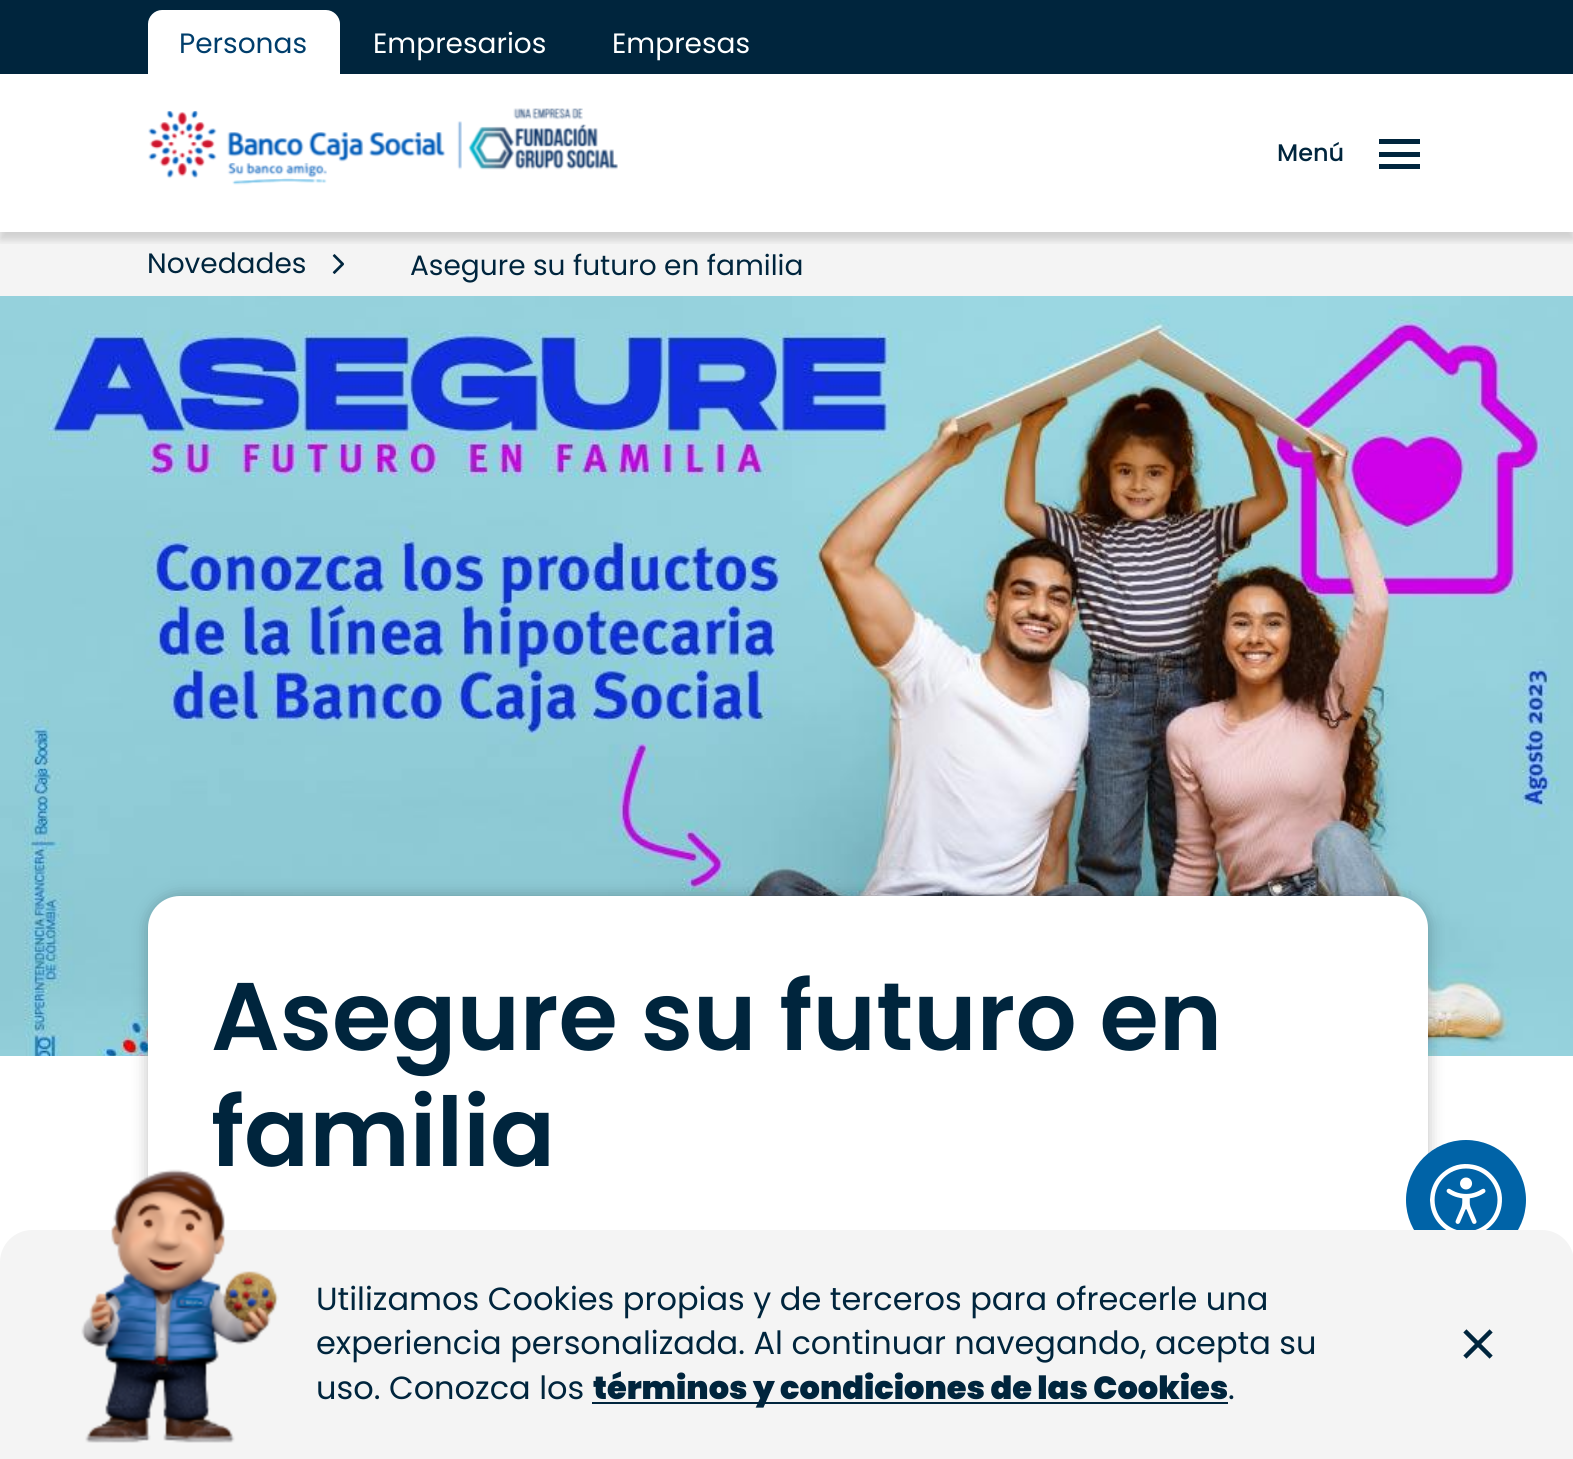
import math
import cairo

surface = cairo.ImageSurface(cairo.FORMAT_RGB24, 1573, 1459)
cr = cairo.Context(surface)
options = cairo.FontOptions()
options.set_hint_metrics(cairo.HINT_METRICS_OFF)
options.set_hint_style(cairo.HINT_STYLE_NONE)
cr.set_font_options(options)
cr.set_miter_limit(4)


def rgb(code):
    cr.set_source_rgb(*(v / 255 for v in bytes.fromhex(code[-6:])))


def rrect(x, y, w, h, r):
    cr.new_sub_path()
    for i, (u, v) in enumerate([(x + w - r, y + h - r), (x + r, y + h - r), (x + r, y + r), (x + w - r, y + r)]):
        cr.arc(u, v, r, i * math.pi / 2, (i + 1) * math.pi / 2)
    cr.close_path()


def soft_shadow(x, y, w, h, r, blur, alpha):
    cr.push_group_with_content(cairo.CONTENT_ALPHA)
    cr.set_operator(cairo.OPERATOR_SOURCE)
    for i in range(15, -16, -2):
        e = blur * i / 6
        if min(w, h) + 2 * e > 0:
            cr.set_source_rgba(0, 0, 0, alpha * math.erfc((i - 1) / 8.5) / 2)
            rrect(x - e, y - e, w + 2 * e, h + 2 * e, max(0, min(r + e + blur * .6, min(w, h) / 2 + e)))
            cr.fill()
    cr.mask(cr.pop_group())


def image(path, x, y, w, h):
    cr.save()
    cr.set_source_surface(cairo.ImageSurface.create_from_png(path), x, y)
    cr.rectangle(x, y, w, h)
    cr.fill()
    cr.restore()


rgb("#ffffff")
cr.paint()
rgb("#f4f4f4")
cr.rectangle(0, 232, 1573, 64)
cr.fill()
cr.save()
cr.rectangle(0, 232, 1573, 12)
cr.clip()
rgb("#000000")
soft_shadow(0, 8, 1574, 232, 0, 4, 0.15)
cr.restore()
rgb("#00253d")
cr.rectangle(0, 0, 1573, 74)
cr.fill()
rgb("#ffffff")
cr.new_path()
cr.move_to(162, 10)
cr.line_to(326, 10)
cr.curve_to(333.5, 10, 340, 16.5, 340, 24)
cr.line_to(340, 74)
cr.line_to(148, 74)
cr.line_to(148, 24)
cr.curve_to(148, 16.5, 154.5, 10, 162, 10)
cr.close_path()
cr.fill()
image("img/1.png", 148, 108, 470, 77)
rgb("#00253d")
cr.new_path()
cr.move_to(1379, 169)
cr.line_to(1379, 164)
cr.line_to(1420, 164)
cr.line_to(1420, 169)
cr.close_path()
cr.move_to(1379, 157)
cr.line_to(1379, 152)
cr.line_to(1420, 152)
cr.line_to(1420, 157)
cr.close_path()
cr.move_to(1379, 144)
cr.line_to(1379, 139)
cr.line_to(1420, 139)
cr.line_to(1420, 144)
cr.close_path()
cr.fill()
image("img/4.png", 0, 296, 1573, 760)
rgb("#000000")
soft_shadow(148, 896, 1280, 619, 32, 8, 0.25)
rgb("#ffffff")
rrect(148, 896, 1280, 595, 32)
cr.fill()
rgb("#0063a7")
cr.arc(1466, 1200, 60, 0, 2 * math.pi)
cr.fill()
image("img/2.png", 1430, 1164, 72, 66)
image("img/3.png", 332, 254, 12, 20)
rgb("#f4f4f4")
cr.new_path()
cr.move_to(32, 1230)
cr.line_to(1542, 1230)
cr.curve_to(1559.5, 1230, 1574, 1244.5, 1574, 1262)
cr.line_to(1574, 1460)
cr.line_to(0, 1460)
cr.line_to(0, 1262)
cr.curve_to(0, 1244.5, 14.5, 1230, 32, 1230)
cr.close_path()
cr.fill()
image("img/5.png", 81, 1169, 198, 274)
rgb("#00253d")
cr.rectangle(592, 1402, 636, 2)
cr.fill()
image("img/6.png", 1463, 1329, 30, 30)
cr.select_font_face("Poppins")
cr.set_font_size(28)
rgb("#003e6c")
cr.move_to(179, 53)
cr.show_text("Personas")
rgb("#ffffff")
cr.move_to(373, 53)
cr.show_text("Empresarios")
cr.move_to(612, 53)
cr.show_text("Empresas")
cr.select_font_face("Poppins Medium")
cr.set_font_size(24)
rgb("#00253d")
cr.move_to(1277, 161)
cr.show_text("Menú")
cr.select_font_face("Poppins")
cr.set_font_size(28)
cr.move_to(147, 273)
cr.show_text("Novedades")
cr.move_to(410, 275)
cr.show_text("Asegure su futuro en familia")
cr.select_font_face("Poppins SemiBold")
cr.set_font_size(96)
cr.move_to(211, 1050)
cr.show_text("Asegure su futuro en")
cr.move_to(211, 1166)
cr.show_text("familia")
cr.select_font_face("Poppins")
cr.set_font_size(32)
for x, y, s in [
    (316, 1310, "Utilizamos Cookies propias y de terceros para ofrecerle una"),
    (316, 1354, "experiencia personalizada. Al continuar navegando, acepta su"),
    (316, 1399, "uso. Conozca los"),
]:
    cr.move_to(x, y)
    cr.show_text(s)
cr.select_font_face("Poppins Black")
cr.move_to(593, 1399)
cr.show_text("términos y condiciones de las Cookies")
cr.select_font_face("Poppins")
cr.move_to(1228, 1399)
cr.show_text(".")
surface.write_to_png("page.png")
